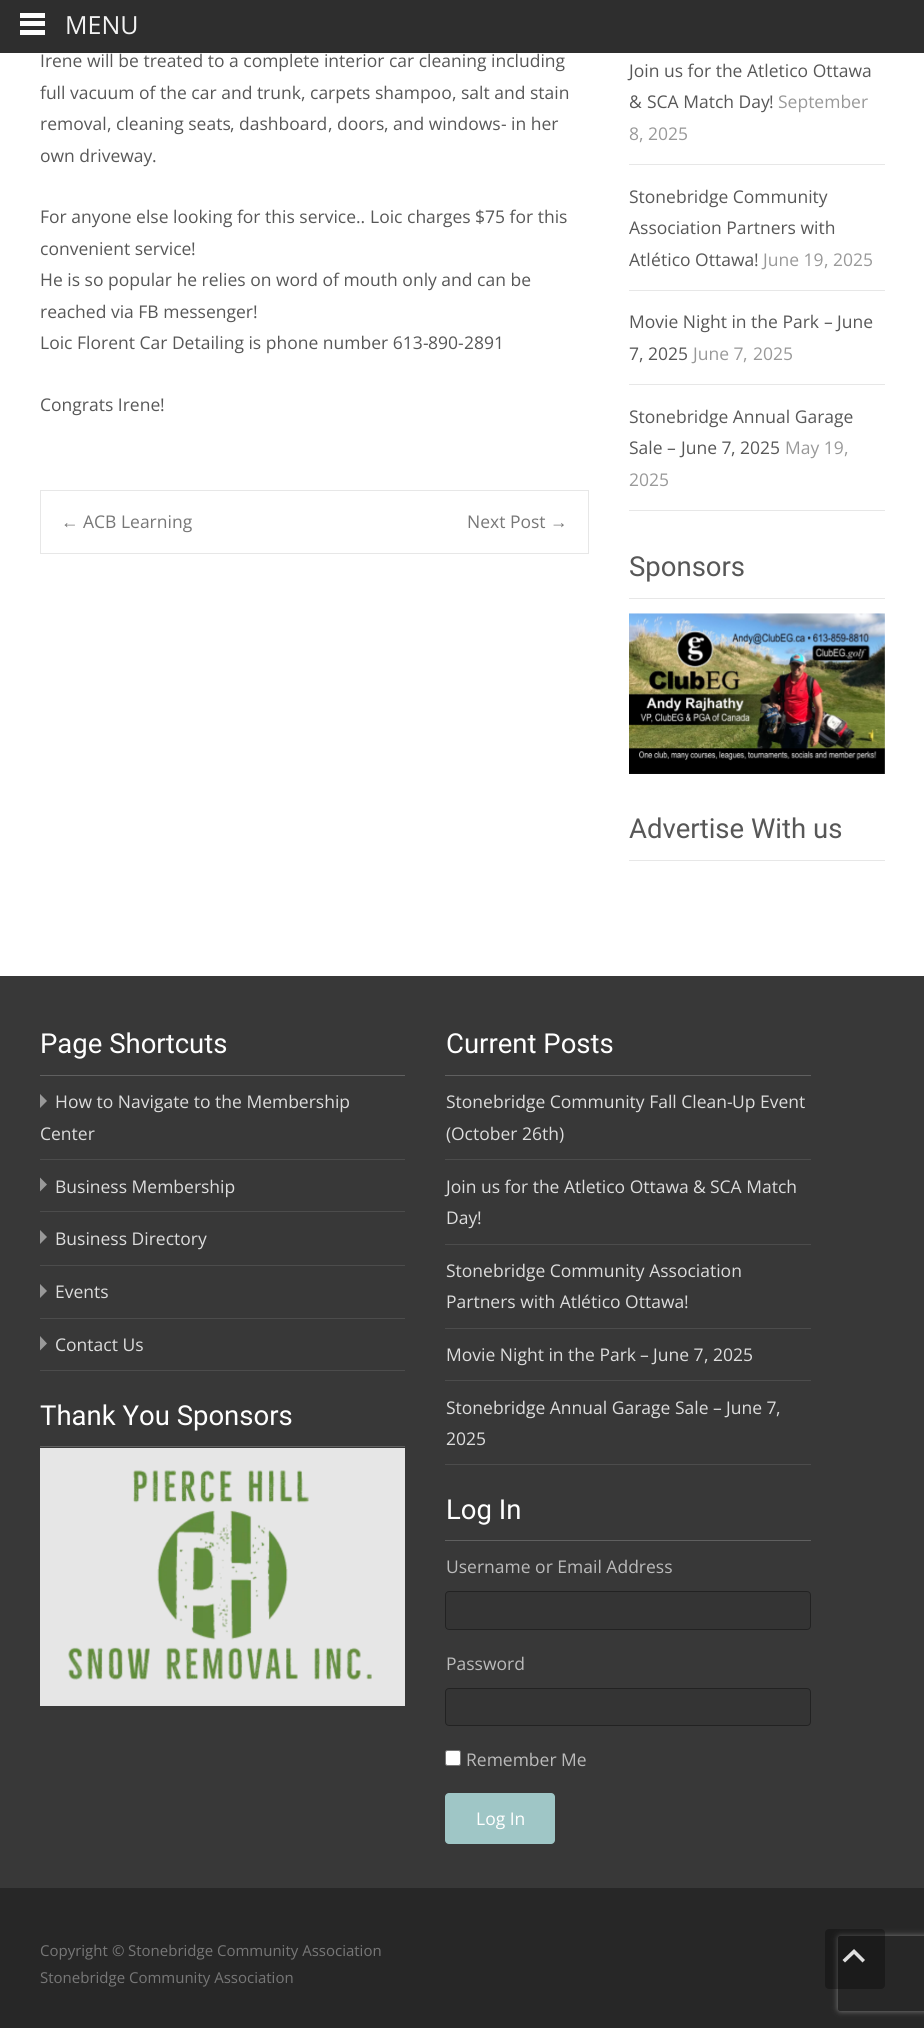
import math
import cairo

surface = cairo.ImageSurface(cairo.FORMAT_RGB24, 924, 2028)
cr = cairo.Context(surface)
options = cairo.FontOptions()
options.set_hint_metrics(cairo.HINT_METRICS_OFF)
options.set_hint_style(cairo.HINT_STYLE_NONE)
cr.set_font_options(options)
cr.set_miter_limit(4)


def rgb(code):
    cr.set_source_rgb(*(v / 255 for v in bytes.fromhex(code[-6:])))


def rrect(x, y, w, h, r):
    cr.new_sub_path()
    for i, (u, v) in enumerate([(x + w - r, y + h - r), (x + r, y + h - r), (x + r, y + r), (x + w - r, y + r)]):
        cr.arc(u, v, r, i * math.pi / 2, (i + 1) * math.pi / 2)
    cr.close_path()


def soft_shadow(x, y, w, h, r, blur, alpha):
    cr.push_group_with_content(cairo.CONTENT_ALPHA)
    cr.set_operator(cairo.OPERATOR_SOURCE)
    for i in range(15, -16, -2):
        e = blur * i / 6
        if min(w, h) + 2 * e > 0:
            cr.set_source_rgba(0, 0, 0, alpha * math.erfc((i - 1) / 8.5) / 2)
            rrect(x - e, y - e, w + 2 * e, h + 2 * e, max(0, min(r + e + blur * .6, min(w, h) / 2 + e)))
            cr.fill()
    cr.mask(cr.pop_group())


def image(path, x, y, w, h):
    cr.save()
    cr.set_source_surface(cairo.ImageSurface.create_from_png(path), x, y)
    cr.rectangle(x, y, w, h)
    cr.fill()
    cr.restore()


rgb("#ffffff")
cr.paint()
for x, y, w, h, color in [
    (0, 0, 924, 53, "#2e2e2e"),
    (20, 13, 25, 5, "#ffffff"),
    (20, 21, 25, 5, "#ffffff"),
    (20, 30, 25, 5, "#ffffff"),
]:
    rgb(color)
    cr.rectangle(x, y, w, h)
    cr.fill()
cr.rectangle(40.5, 490.5, 548, 63)
rgb("#e7e7e7")
cr.set_line_width(1)
cr.stroke()
for x, y, w, h, color in [
    (629, 164, 256, 1, "#e7e7e7"),
    (629, 290, 256, 1, "#e7e7e7"),
    (629, 384, 256, 1, "#e7e7e7"),
    (629, 510, 256, 1, "#e7e7e7"),
    (629, 598, 256, 1, "#e7e7e7"),
]:
    rgb(color)
    cr.rectangle(x, y, w, h)
    cr.fill()
image("img/1.png", 629, 613, 256, 161)
for x, y, w, h, color in [
    (629, 860, 256, 1, "#e7e7e7"),
    (0, 1888, 924, 140, "#272727"),
    (0, 976, 924, 912, "#383838"),
    (40, 1075, 365, 1, "#606060"),
    (40, 1159, 365, 1, "#4c4c4c"),
]:
    rgb(color)
    cr.rectangle(x, y, w, h)
    cr.fill()
rgb("#999999")
cr.new_path()
cr.move_to(40, 1108)
cr.line_to(47, 1101)
cr.line_to(40, 1094)
cr.close_path()
cr.fill()
rgb("#4c4c4c")
cr.rectangle(40, 1211, 365, 1)
cr.fill()
rgb("#999999")
cr.new_path()
cr.move_to(40, 1191.5)
cr.line_to(47, 1184.5)
cr.line_to(40, 1177.5)
cr.close_path()
cr.fill()
rgb("#4c4c4c")
cr.rectangle(40, 1265, 365, 1)
cr.fill()
rgb("#999999")
cr.new_path()
cr.move_to(40, 1244)
cr.line_to(47, 1237)
cr.line_to(40, 1230)
cr.close_path()
cr.fill()
rgb("#4c4c4c")
cr.rectangle(40, 1318, 365, 1)
cr.fill()
rgb("#999999")
cr.new_path()
cr.move_to(40, 1298)
cr.line_to(47, 1291)
cr.line_to(40, 1284)
cr.close_path()
cr.fill()
rgb("#4c4c4c")
cr.rectangle(40, 1370, 365, 1)
cr.fill()
rgb("#999999")
cr.new_path()
cr.move_to(40, 1350.5)
cr.line_to(47, 1343.5)
cr.line_to(40, 1336)
cr.close_path()
cr.fill()
for x, y, w, h, color in [
    (445, 1075, 366, 1, "#606060"),
    (445, 1159, 366, 1, "#4c4c4c"),
    (445, 1244, 366, 1, "#4c4c4c"),
    (445, 1328, 366, 1, "#4c4c4c"),
    (445, 1380, 366, 1, "#4c4c4c"),
    (445, 1464, 366, 1, "#4c4c4c"),
    (40, 1446, 365, 1, "#606060"),
    (40, 1448, 365, 258, "#e6e6e6"),
]:
    rgb(color)
    cr.rectangle(x, y, w, h)
    cr.fill()
image("img/2.png", 68, 1470, 304, 210)
rgb("#606060")
cr.rectangle(445, 1540, 366, 1)
cr.fill()
rgb("#343434")
rrect(445.5, 1591.5, 365, 38, 3.5)
cr.fill_preserve()
rgb("#222222")
cr.stroke()
rgb("#343434")
rrect(445.5, 1688.5, 365, 37, 3.5)
cr.fill_preserve()
rgb("#222222")
cr.stroke()
rgb("#ffffff")
rrect(445.5, 1750.5, 15, 15, 2)
cr.fill_preserve()
rgb("#767676")
cr.stroke()
rgb("#9fc6c6")
rrect(445, 1793, 110, 51, 4)
cr.fill()
cr.save()
cr.set_fill_rule(cairo.FILL_RULE_EVEN_ODD)
cr.new_path()
cr.move_to(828, 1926)
cr.line_to(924, 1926)
cr.line_to(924, 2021)
cr.line_to(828, 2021)
cr.close_path()
cr.move_to(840.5, 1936)
cr.line_to(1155.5, 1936)
cr.curve_to(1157, 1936, 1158, 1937, 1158, 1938.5)
cr.line_to(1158, 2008.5)
cr.curve_to(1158, 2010, 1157, 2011, 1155.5, 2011)
cr.line_to(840.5, 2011)
cr.curve_to(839, 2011, 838, 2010, 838, 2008.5)
cr.line_to(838, 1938.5)
cr.curve_to(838, 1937, 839, 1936, 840.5, 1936)
cr.close_path()
cr.clip()
rgb("#808080")
soft_shadow(838, 1936, 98, 75, 2.5, 3, 1)
cr.restore()
cr.set_source_rgba(0, 0, 0, 0.3)
rrect(825, 1929, 60, 60, 4)
cr.fill()
rgb("#dfdfdf")
cr.new_path()
cr.move_to(842.5, 1960)
cr.line_to(854, 1949)
cr.line_to(865, 1960)
cr.line_to(862.5, 1962.5)
cr.line_to(854, 1954)
cr.line_to(845, 1962.5)
cr.close_path()
cr.fill()
cr.select_font_face("Open Sans")
cr.set_font_size(25)
rgb("#f2f2f2")
cr.move_to(65, 34)
cr.show_text("MENU")
cr.set_font_size(17.5)
rgb("#575757")
cr.move_to(40, 67)
cr.show_text("Irene will be treated to a complete interior car cleaning including")
cr.move_to(40, 99)
cr.show_text("full vacuum of the car and trunk")
cr.select_font_face("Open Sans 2")
cr.move_to(301, 99)
cr.show_text(",")
cr.select_font_face("Open Sans")
cr.move_to(310, 99)
cr.show_text("carpets shampoo")
cr.select_font_face("Open Sans 2")
cr.move_to(452, 99)
cr.show_text(",")
cr.select_font_face("Open Sans")
for x, y, s in [
    (461, 99, "salt and stain"),
    (40, 130, "removal"),
    (116, 130, "cleaning seats"),
    (239, 130, "dashboard"),
    (337, 130, "doors"),
    (393, 130, "and windows"),
]:
    cr.move_to(x, y)
    cr.show_text(s)
cr.select_font_face("Open Sans 2")
cr.move_to(501, 130)
cr.show_text("-")
cr.select_font_face("Open Sans")
cr.move_to(511, 130)
cr.show_text("in her")
cr.select_font_face("Open Sans 2")
for x, y, s in [
    (107, 130, ","),
    (230, 130, ","),
    (328, 130, ","),
    (384, 130, ","),
]:
    cr.move_to(x, y)
    cr.show_text(s)
cr.select_font_face("Open Sans")
cr.move_to(40, 162)
cr.show_text("own driveway")
cr.select_font_face("Open Sans 2")
cr.move_to(152, 162)
cr.show_text(".")
cr.select_font_face("Open Sans")
cr.move_to(40, 223)
cr.show_text("For anyone else looking for this service")
cr.select_font_face("Open Sans 2")
cr.move_to(356, 223)
cr.show_text("..")
cr.select_font_face("Open Sans")
cr.move_to(370, 223)
cr.show_text("Loic charges")
cr.select_font_face("Open Sans 2")
cr.move_to(475, 223)
cr.show_text("$")
cr.select_font_face("Open Sans")
cr.move_to(485, 223)
cr.show_text("75 for this")
cr.move_to(40, 255)
cr.show_text("convenient service")
cr.select_font_face("Open Sans 2")
cr.move_to(191, 255)
cr.show_text("!")
cr.select_font_face("Open Sans")
cr.move_to(40, 286)
cr.show_text("He is so popular he relies on word of mouth only and can be")
cr.move_to(40, 318)
cr.show_text("reached via FB messenger")
cr.select_font_face("Open Sans 2")
cr.move_to(253, 318)
cr.show_text("!")
cr.select_font_face("Open Sans")
cr.move_to(40, 349)
cr.show_text("Loic Florent Car Detailing is phone number 613")
cr.select_font_face("Open Sans 2")
cr.move_to(423, 349)
cr.show_text("-")
cr.select_font_face("Open Sans")
cr.move_to(428, 349)
cr.show_text("890")
cr.select_font_face("Open Sans 2")
cr.move_to(458, 349)
cr.show_text("-")
cr.select_font_face("Open Sans")
cr.move_to(464, 349)
cr.show_text("2891")
cr.move_to(40, 411)
cr.show_text("Congrats Irene")
cr.select_font_face("Open Sans 2")
cr.move_to(160, 411)
cr.show_text("!")
cr.select_font_face("Liberation Sans")
rgb("#777777")
cr.move_to(61, 528)
cr.show_text("←")
cr.select_font_face("Open Sans")
cr.move_to(83, 528)
cr.show_text("ACB Learning")
cr.move_to(467, 528)
cr.show_text("Next Post")
cr.select_font_face("Liberation Sans")
cr.move_to(550, 528)
cr.show_text("→")
cr.select_font_face("Open Sans")
rgb("#575757")
cr.move_to(629, 77)
cr.show_text("Join us for the Atletico Ottawa")
cr.select_font_face("Open Sans 2")
cr.move_to(629, 108)
cr.show_text("&")
cr.select_font_face("Open Sans")
cr.move_to(647, 108)
cr.show_text("SCA Match Day")
cr.select_font_face("Open Sans 2")
cr.move_to(769, 108)
cr.show_text("!")
cr.select_font_face("Open Sans")
rgb("#999999")
cr.move_to(778, 108)
cr.show_text("September")
cr.move_to(629, 140)
cr.show_text("8")
cr.select_font_face("Open Sans 2")
cr.move_to(639, 140)
cr.show_text(",")
cr.select_font_face("Open Sans")
cr.move_to(648, 140)
cr.show_text("2025")
rgb("#575757")
for x, y, s in [
    (629, 203, "Stonebridge Community"),
    (629, 234, "Association Partners with"),
    (629, 266, "Atl"),
]:
    cr.move_to(x, y)
    cr.show_text(s)
cr.select_font_face("Open Sans 2")
cr.move_to(651, 266)
cr.show_text("é")
cr.select_font_face("Open Sans")
cr.move_to(661, 266)
cr.show_text("tico Ottawa")
cr.select_font_face("Open Sans 2")
cr.move_to(754, 266)
cr.show_text("!")
cr.select_font_face("Open Sans")
rgb("#999999")
cr.move_to(763, 266)
cr.show_text("June 19")
cr.select_font_face("Open Sans 2")
cr.move_to(824, 266)
cr.show_text(",")
cr.select_font_face("Open Sans")
cr.move_to(833, 266)
cr.show_text("2025")
rgb("#575757")
cr.move_to(629, 328)
cr.show_text("Movie Night in the Park")
cr.select_font_face("Open Sans 2")
cr.move_to(824, 328)
cr.show_text("–")
cr.select_font_face("Open Sans")
cr.move_to(837, 328)
cr.show_text("June")
cr.move_to(629, 360)
cr.show_text("7")
cr.select_font_face("Open Sans 2")
cr.move_to(639, 360)
cr.show_text(",")
cr.select_font_face("Open Sans")
cr.move_to(648, 360)
cr.show_text("2025")
rgb("#999999")
cr.move_to(693, 360)
cr.show_text("June 7")
cr.select_font_face("Open Sans 2")
cr.move_to(743, 360)
cr.show_text(",")
cr.select_font_face("Open Sans")
cr.move_to(753, 360)
cr.show_text("2025")
rgb("#575757")
cr.move_to(629, 423)
cr.show_text("Stonebridge Annual Garage")
cr.move_to(629, 454)
cr.show_text("Sale")
cr.select_font_face("Open Sans 2")
cr.move_to(667, 454)
cr.show_text("–")
cr.select_font_face("Open Sans")
cr.move_to(681, 454)
cr.show_text("June 7")
cr.move_to(740, 454)
cr.show_text("2025")
rgb("#999999")
cr.move_to(785, 454)
cr.show_text("May 19")
cr.select_font_face("Open Sans 2")
rgb("#575757")
cr.move_to(731, 454)
cr.show_text(",")
rgb("#999999")
cr.move_to(844, 454)
cr.show_text(",")
cr.select_font_face("Open Sans")
cr.move_to(629, 486)
cr.show_text("2025")
cr.select_font_face("Roboto")
cr.set_font_size(27.5)
rgb("#575757")
cr.move_to(629, 576)
cr.show_text("Sponsors")
cr.move_to(629, 838)
cr.show_text("Advertise With us")
rgb("#ffffff")
cr.move_to(40, 1053)
cr.show_text("Page Shortcuts")
cr.select_font_face("Open Sans")
cr.set_font_size(17.5)
rgb("#dddddd")
for x, y, s in [
    (55, 1108, "How to Navigate to the Membership"),
    (40, 1140, "Center"),
    (55, 1193, "Business Membership"),
    (55, 1245, "Business Directory"),
    (55, 1298, "Events"),
    (55, 1351, "Contact Us"),
]:
    cr.move_to(x, y)
    cr.show_text(s)
cr.select_font_face("Roboto")
cr.set_font_size(27.5)
rgb("#ffffff")
cr.move_to(446, 1053)
cr.show_text("Current Posts")
cr.select_font_face("Open Sans")
cr.set_font_size(17.5)
rgb("#dddddd")
cr.move_to(446, 1108)
cr.show_text("Stonebridge Community Fall Clean")
cr.select_font_face("Open Sans 2")
cr.move_to(727, 1108)
cr.show_text("-")
cr.select_font_face("Open Sans")
cr.move_to(732, 1108)
cr.show_text("Up Event")
cr.select_font_face("Open Sans 2")
cr.move_to(446, 1140)
cr.show_text("(")
cr.select_font_face("Open Sans")
cr.move_to(451, 1140)
cr.show_text("October 26th")
cr.select_font_face("Open Sans 2")
cr.move_to(559, 1140)
cr.show_text(")")
cr.select_font_face("Open Sans")
cr.move_to(446, 1193)
cr.show_text("Join us for the Atletico Ottawa")
cr.select_font_face("Open Sans 2")
cr.move_to(693, 1193)
cr.show_text("&")
cr.select_font_face("Open Sans")
cr.move_to(710, 1193)
cr.show_text("SCA Match")
cr.move_to(446, 1224)
cr.show_text("Day")
cr.select_font_face("Open Sans 2")
cr.move_to(477, 1224)
cr.show_text("!")
cr.select_font_face("Open Sans")
cr.move_to(446, 1277)
cr.show_text("Stonebridge Community Association")
cr.move_to(446, 1308)
cr.show_text("Partners with Atl")
cr.select_font_face("Open Sans 2")
cr.move_to(581, 1308)
cr.show_text("é")
cr.select_font_face("Open Sans")
cr.move_to(591, 1308)
cr.show_text("tico Ottawa")
cr.select_font_face("Open Sans 2")
cr.move_to(684, 1308)
cr.show_text("!")
cr.select_font_face("Open Sans")
cr.move_to(446, 1361)
cr.show_text("Movie Night in the Park")
cr.select_font_face("Open Sans 2")
cr.move_to(640, 1361)
cr.show_text("–")
cr.select_font_face("Open Sans")
cr.move_to(653, 1361)
cr.show_text("June 7")
cr.move_to(713, 1361)
cr.show_text("2025")
cr.select_font_face("Open Sans 2")
cr.move_to(704, 1361)
cr.show_text(",")
cr.select_font_face("Open Sans")
cr.move_to(446, 1414)
cr.show_text("Stonebridge Annual Garage Sale")
cr.select_font_face("Open Sans 2")
cr.move_to(713, 1414)
cr.show_text("–")
cr.select_font_face("Open Sans")
cr.move_to(726, 1414)
cr.show_text("June 7")
cr.select_font_face("Open Sans 2")
cr.move_to(776, 1414)
cr.show_text(",")
cr.select_font_face("Open Sans")
cr.move_to(446, 1445)
cr.show_text("2025")
cr.select_font_face("Roboto")
cr.set_font_size(27.5)
rgb("#ffffff")
cr.move_to(40, 1425)
cr.show_text("Thank You Sponsors")
cr.move_to(446, 1519)
cr.show_text("Log In")
cr.select_font_face("Open Sans")
cr.set_font_size(17.5)
rgb("#bbbbbb")
for x, y, s in [
    (446, 1573, "Username or Email Address"),
    (446, 1670, "Password"),
    (466, 1766, "Remember Me"),
]:
    cr.move_to(x, y)
    cr.show_text(s)
rgb("#ffffff")
cr.move_to(476, 1825)
cr.show_text("Log In")
cr.set_font_size(15)
rgb("#777777")
cr.move_to(40, 1956)
cr.show_text("Copyright")
cr.select_font_face("Open Sans 2")
cr.move_to(112, 1956)
cr.show_text("©")
cr.select_font_face("Open Sans")
cr.move_to(128, 1956)
cr.show_text("Stonebridge Community Association")
cr.move_to(40, 1983)
cr.show_text("Stonebridge Community Association")
surface.write_to_png("page.png")
